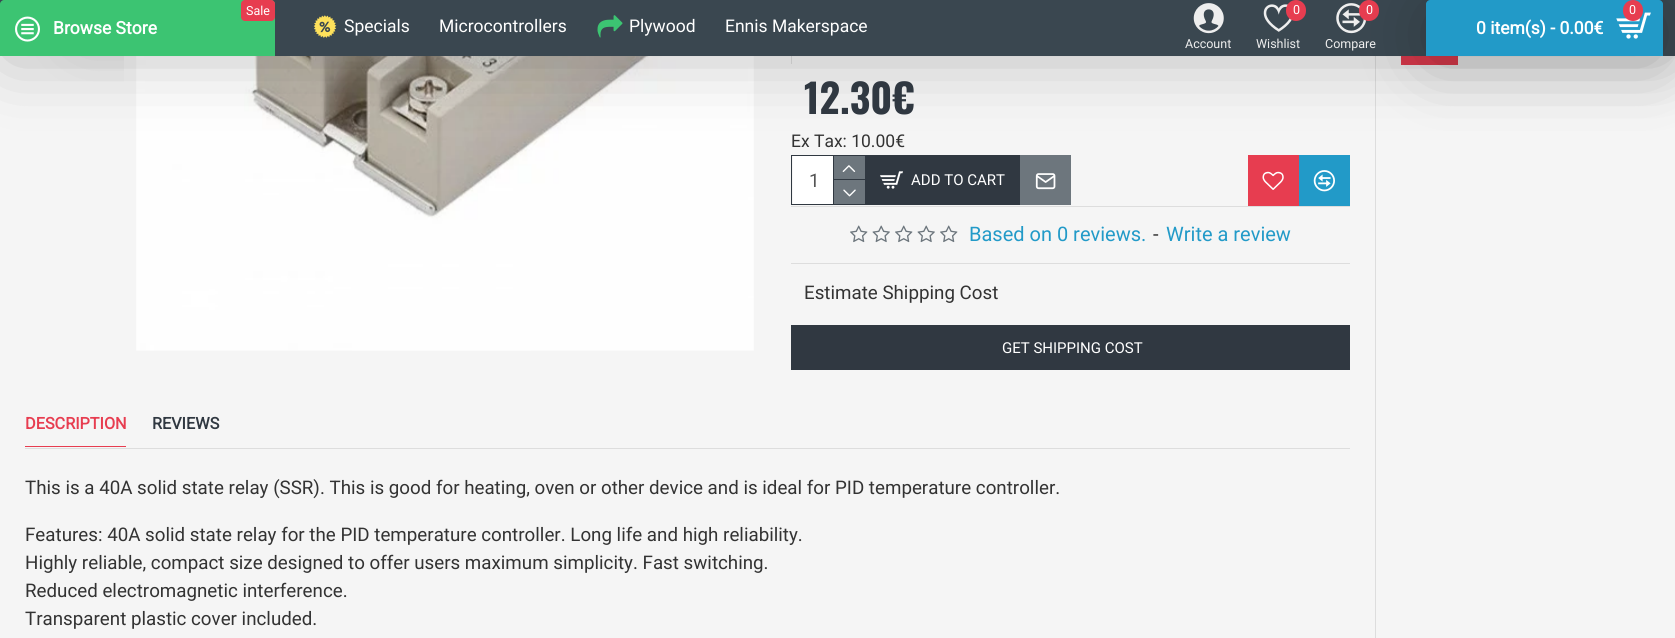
import math
import cairo

surface = cairo.ImageSurface(cairo.FORMAT_RGB24, 1675, 638)
cr = cairo.Context(surface)
options = cairo.FontOptions()
options.set_hint_metrics(cairo.HINT_METRICS_OFF)
options.set_hint_style(cairo.HINT_STYLE_NONE)
cr.set_font_options(options)
cr.set_miter_limit(4)


def rgb(code):
    cr.set_source_rgb(*(v / 255 for v in bytes.fromhex(code[-6:])))


def rrect(x, y, w, h, r):
    cr.new_sub_path()
    for i, (u, v) in enumerate([(x + w - r, y + h - r), (x + r, y + h - r), (x + r, y + r), (x + w - r, y + r)]):
        cr.arc(u, v, r, i * math.pi / 2, (i + 1) * math.pi / 2)
    cr.close_path()


def soft_shadow(x, y, w, h, r, blur, alpha):
    cr.push_group_with_content(cairo.CONTENT_ALPHA)
    cr.set_operator(cairo.OPERATOR_SOURCE)
    for i in range(15, -16, -2):
        e = blur * i / 6
        if min(w, h) + 2 * e > 0:
            cr.set_source_rgba(0, 0, 0, alpha * math.erfc((i - 1) / 8.5) / 2)
            rrect(x - e, y - e, w + 2 * e, h + 2 * e, max(0, min(r + e + blur * .6, min(w, h) / 2 + e)))
            cr.fill()
    cr.mask(cr.pop_group())


def image(path, x, y, w, h):
    cr.save()
    cr.set_source_surface(cairo.ImageSurface.create_from_png(path), x, y)
    cr.rectangle(x, y, w, h)
    cr.fill()
    cr.restore()


rgb("#f5f5f5")
cr.paint()
cr.save()
cr.rectangle(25, 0, 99, 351)
cr.clip()
rgb("#000000")
soft_shadow(81, -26, 62, 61, 0, 31, 0.15)
cr.restore()
image("img/8.png", 136, 56, 618, 295)
rgb("#dddddd")
cr.rectangle(791, 56, 1, 8)
cr.fill()
cr.rectangle(791.5, 155.5, 74, 49)
rgb("#303841")
cr.set_line_width(1)
cr.stroke()
for x, y, w, h, color in [
    (793, 156, 40, 48, "#ffffff"),
    (833, 156, 1, 48, "#303841"),
    (834, 156, 31, 23, "#6d767d"),
    (866, 155, 154, 50, "#303841"),
    (1020, 155, 51, 50, "#6d767d"),
    (1248, 155, 51, 51, "#e73d50"),
    (1299, 155, 51, 51, "#229ac8"),
    (1375, 56, 1, 582, "#dddddd"),
    (1401, 56, 57, 9, "#e73d50"),
]:
    rgb(color)
    cr.rectangle(x, y, w, h)
    cr.fill()
rgb("#000000")
soft_shadow(13, 19, 1650, 31, 0, 37.5, 0.3)
rgb("#3a4750")
cr.rectangle(0, 0, 1675, 56)
cr.fill()
rgb("#3cc472")
cr.new_path()
cr.move_to(4, 0)
cr.line_to(271, 0)
cr.curve_to(273, 0, 275, 2, 275, 4)
cr.line_to(275, 56)
cr.line_to(0, 56)
cr.line_to(0, 4)
cr.curve_to(0, 2, 2, 0, 4, 0)
cr.close_path()
cr.fill()
rgb("#e73d50")
rrect(241, 0, 34, 21, 4)
cr.fill()
image("img/1.png", 15, 16, 25, 26)
image("img/2.png", 313, 15, 24, 23)
image("img/3.png", 597, 15, 26, 23)
image("img/4.png", 1193, 3, 31, 31)
image("img/5.png", 1263, 4, 29, 28)
rrect(1286, 0, 20, 21, 10)
cr.fill()
image("img/6.png", 1336, 3, 31, 31)
rrect(1359, 0, 20, 21, 10)
cr.fill()
rgb("#000000")
soft_shadow(1439, 19, 211, 31, 0, 37.5, 0.3)
rgb("#229ac8")
cr.new_path()
cr.move_to(1430, 0)
cr.line_to(1659, 0)
cr.curve_to(1661, 0, 1663, 2, 1663, 4)
cr.line_to(1663, 56)
cr.line_to(1426, 56)
cr.line_to(1426, 4)
cr.curve_to(1426, 2, 1428, 0, 1430, 0)
cr.close_path()
cr.fill()
image("img/7.png", 1616, 12, 35, 27)
rgb("#e73d50")
rrect(1623, 0, 20, 21, 10)
cr.fill()
rgb("#303841")
cr.rectangle(834, 179, 31, 1)
cr.fill()
image("img/9.png", 842, 165, 14, 7)
rgb("#6d767d")
cr.rectangle(834, 180, 31, 24)
cr.fill()
image("img/10.png", 843, 189, 13, 8)
image("img/11.png", 880, 171, 23, 18)
image("img/12.png", 1035, 173, 21, 17)
image("img/13.png", 1262, 171, 22, 19)
image("img/14.png", 1313, 170, 22, 22)
rgb("#dddddd")
cr.rectangle(791, 206, 559, 1)
cr.fill()
cr.rectangle(791, 263, 559, 1)
cr.fill()
image("img/15.png", 850, 225, 18, 18)
image("img/16.png", 872, 225, 18, 18)
image("img/15.png", 895, 225, 18, 18)
image("img/16.png", 917, 225, 18, 18)
image("img/15.png", 940, 225, 18, 18)
for x, y, w, h, color in [
    (791, 325, 559, 45, "#303841"),
    (25, 448, 1325, 1, "#dddddd"),
    (25, 446, 101, 1, "#e73d50"),
]:
    rgb(color)
    cr.rectangle(x, y, w, h)
    cr.fill()
cr.select_font_face("Roboto")
cr.set_font_size(12.5)
rgb("#ffffff")
cr.move_to(246, 15)
cr.show_text("Sale")
cr.select_font_face("Roboto", cairo.FONT_SLANT_NORMAL, cairo.FONT_WEIGHT_BOLD)
cr.set_font_size(17.5)
cr.move_to(53, 34)
cr.show_text("Browse Store")
cr.select_font_face("Roboto")
for x, y, s in [
    (344, 32, "Specials"),
    (439, 32, "Microcontrollers"),
    (629, 32, "Plywood"),
    (725, 32, "Ennis Makerspace"),
]:
    cr.move_to(x, y)
    cr.show_text(s)
cr.set_font_size(12.5)
rgb("#eeeeee")
cr.move_to(1185, 48)
cr.show_text("Account")
rgb("#ffffff")
cr.move_to(1293, 14)
cr.show_text("0")
rgb("#eeeeee")
cr.move_to(1256, 48)
cr.show_text("Wishlist")
rgb("#ffffff")
cr.move_to(1366, 14)
cr.show_text("0")
rgb("#eeeeee")
cr.move_to(1325, 48)
cr.show_text("Compare")
rgb("#ffffff")
cr.move_to(1629, 14)
cr.show_text("0")
cr.select_font_face("Roboto", cairo.FONT_SLANT_NORMAL, cairo.FONT_WEIGHT_BOLD)
cr.set_font_size(17.5)
cr.move_to(1476, 34)
cr.show_text("0 item(s) - 0.00€")
cr.select_font_face("Oswald", cairo.FONT_SLANT_NORMAL, cairo.FONT_WEIGHT_BOLD)
cr.set_font_size(40)
rgb("#303841")
cr.move_to(804, 114)
cr.show_text("12.30€")
cr.select_font_face("Roboto")
cr.set_font_size(17.5)
rgb("#333333")
cr.move_to(791, 147)
cr.show_text("Ex Tax: 10.00€")
cr.set_font_size(18.75)
rgb("#555555")
cr.move_to(809, 187)
cr.show_text("1")
cr.set_font_size(15)
rgb("#ffffff")
cr.move_to(911, 185)
cr.show_text("ADD TO CART")
cr.set_font_size(20)
rgb("#229ac8")
cr.move_to(969, 241)
cr.show_text("Based on 0 reviews.")
rgb("#333333")
cr.move_to(1153, 241)
cr.show_text("-")
rgb("#229ac8")
cr.move_to(1166, 241)
cr.show_text("Write a review")
cr.set_font_size(18.75)
rgb("#333333")
cr.move_to(804, 299)
cr.show_text("Estimate Shipping Cost")
cr.set_font_size(15)
rgb("#ffffff")
cr.move_to(1002, 353)
cr.show_text("GET SHIPPING COST")
cr.select_font_face("Roboto", cairo.FONT_SLANT_NORMAL, cairo.FONT_WEIGHT_BOLD)
cr.set_font_size(16.25)
rgb("#e73d50")
cr.move_to(25, 429)
cr.show_text("DESCRIPTION")
rgb("#303841")
cr.move_to(152, 429)
cr.show_text("REVIEWS")
cr.select_font_face("Roboto")
cr.set_font_size(18.75)
rgb("#333333")
for x, y, s in [
    (25, 494, "This is a 40A solid state relay (SSR). This is good for heating, oven or other device and is ideal for PID temperature controller."),
    (25, 541, "Features: 40A solid state relay for the PID temperature controller. Long life and high reliability."),
    (25, 569, "Highly reliable, compact size designed to offer users maximum simplicity. Fast switching."),
    (25, 597, "Reduced electromagnetic interference."),
    (25, 625, "Transparent plastic cover included."),
]:
    cr.move_to(x, y)
    cr.show_text(s)
surface.write_to_png("page.png")
